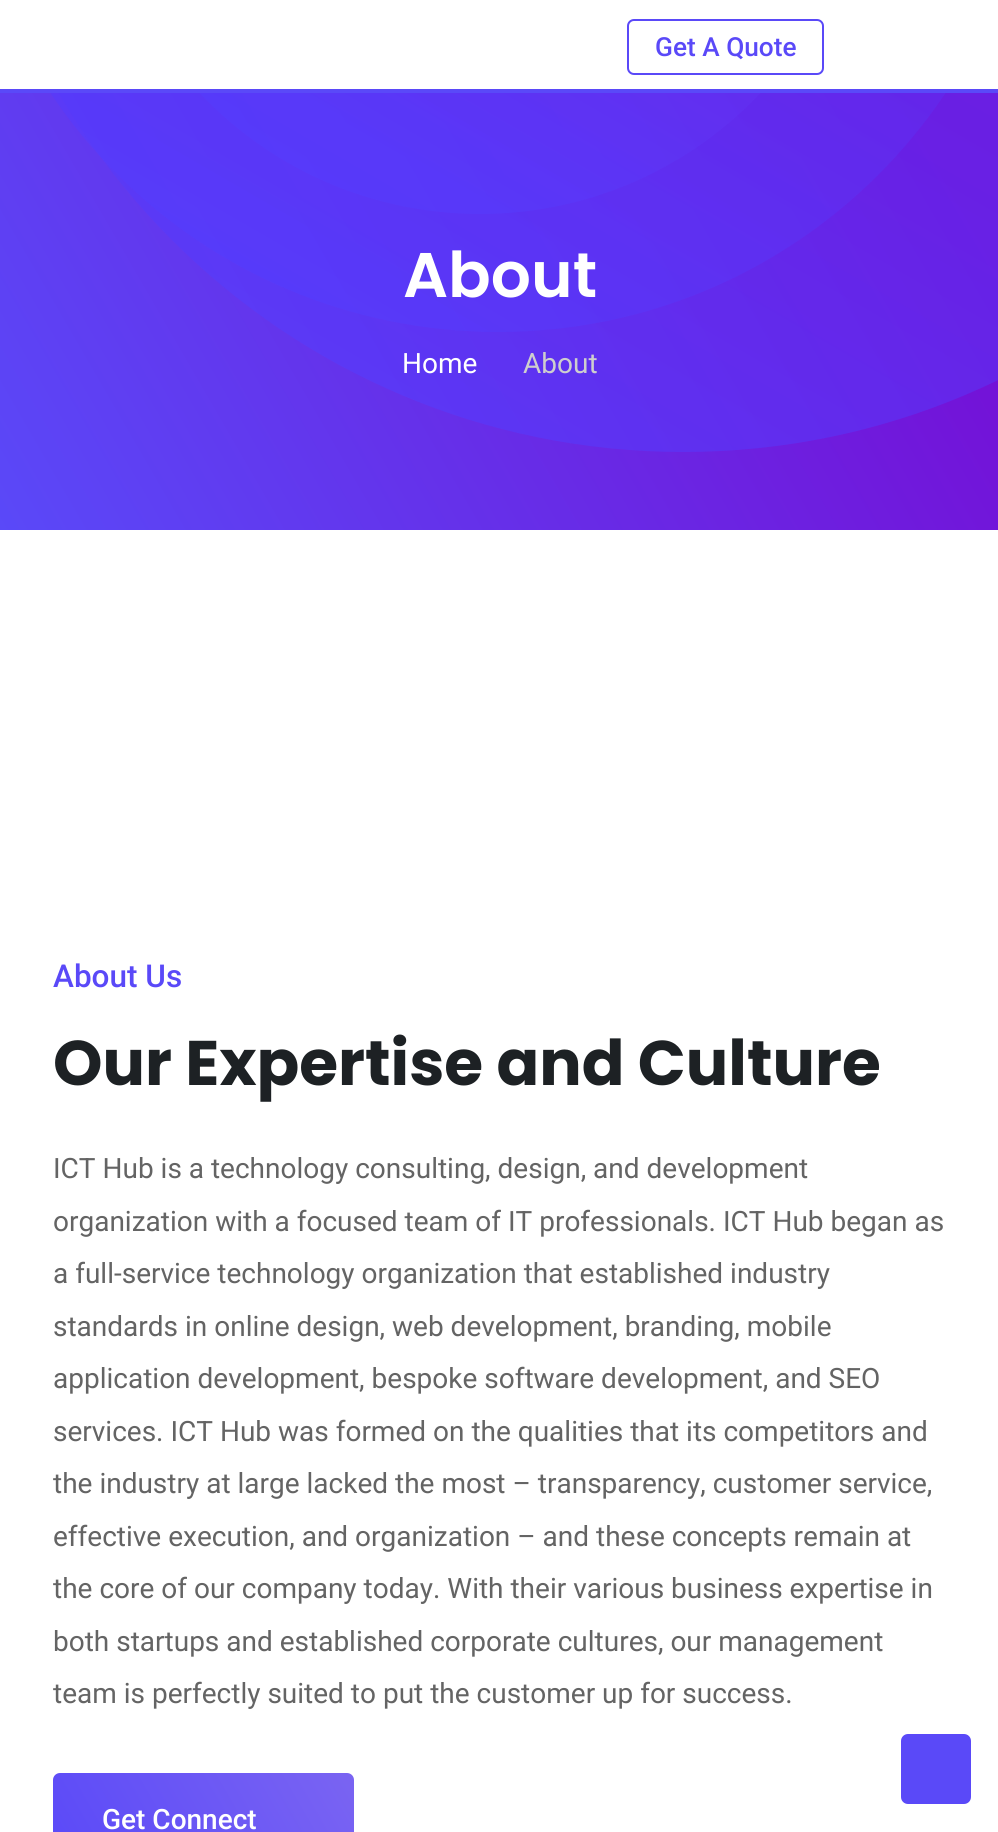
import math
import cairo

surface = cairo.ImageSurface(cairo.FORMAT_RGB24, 998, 1832)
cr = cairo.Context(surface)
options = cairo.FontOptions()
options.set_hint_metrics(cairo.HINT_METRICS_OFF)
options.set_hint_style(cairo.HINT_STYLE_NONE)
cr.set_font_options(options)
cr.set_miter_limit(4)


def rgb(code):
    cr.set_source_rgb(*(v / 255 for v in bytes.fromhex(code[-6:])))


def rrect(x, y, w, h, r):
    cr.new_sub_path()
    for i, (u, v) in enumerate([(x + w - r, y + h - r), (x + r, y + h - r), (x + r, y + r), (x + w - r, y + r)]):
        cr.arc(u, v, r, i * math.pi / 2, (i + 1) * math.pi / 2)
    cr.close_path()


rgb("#ffffff")
cr.paint()
gradient = cairo.LinearGradient(30, 583, 969, 40)
gradient.add_color_stop_rgba(0, 0.353, 0.286, 0.973, 1)
gradient.add_color_stop_rgba(0.93, 0.459, 0.055, 0.835, 1)
cr.set_source(gradient)
cr.rectangle(0, 93, 998, 437)
cr.fill()
gradient = cairo.LinearGradient(-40, 258, 683, -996)
gradient.add_color_stop_rgba(0, 0.322, 0.247, 1, 0.6)
gradient.add_color_stop_rgba(1, 0.459, 0.055, 0.835, 0.6)
cr.set_source(gradient)
cr.new_path()
cr.move_to(683, -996)
cr.curve_to(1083, -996, 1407, -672, 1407, -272)
cr.curve_to(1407, 128, 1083, 452, 683, 452)
cr.curve_to(284, 452, -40, 128, -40, -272)
cr.curve_to(-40, -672, 284, -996, 683, -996)
cr.close_path()
cr.fill()
gradient = cairo.LinearGradient(-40, 188, 498, -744)
gradient.add_color_stop_rgba(0, 0.322, 0.247, 1, 0.6)
gradient.add_color_stop_rgba(1, 0.427, 0.102, 0.875, 0.6)
cr.set_source(gradient)
cr.new_path()
cr.move_to(498, -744)
cr.curve_to(795, -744, 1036, -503, 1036, -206)
cr.curve_to(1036, 92, 795, 332, 498, 332)
cr.curve_to(201, 332, -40, 92, -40, -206)
cr.curve_to(-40, -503, 201, -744, 498, -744)
cr.close_path()
cr.fill()
gradient = cairo.LinearGradient(95, 110, 480, -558)
gradient.add_color_stop_rgba(0.13, 0.322, 0.247, 1, 0.4)
gradient.add_color_stop_rgba(1, 0.51, 0.129, 0.867, 0.4)
cr.set_source(gradient)
cr.new_path()
cr.move_to(480, -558)
cr.curve_to(693, -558, 866, -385, 866, -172)
cr.curve_to(866, 41, 693, 214, 480, 214)
cr.curve_to(267, 214, 94, 41, 94, -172)
cr.curve_to(94, -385, 267, -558, 480, -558)
cr.close_path()
cr.fill()
rgb("#ffffff")
cr.rectangle(0, 0, 998, 89)
cr.fill()
rgb("#5a49f8")
cr.rectangle(0, 89, 998, 4)
cr.fill()
rrect(628, 20, 195, 54, 6)
cr.stroke()
gradient = cairo.LinearGradient(70, 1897, 336, 1743)
gradient.add_color_stop_rgba(0, 0.353, 0.286, 0.973, 1)
gradient.add_color_stop_rgba(1, 0.478, 0.392, 0.949, 1)
cr.set_source(gradient)
rrect(53, 1773, 301, 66, 7)
cr.fill()
rgb("#5a49f8")
rrect(901, 1734, 70, 70, 7)
cr.fill()
cr.select_font_face("Roboto Medium")
cr.set_font_size(26.25)
cr.move_to(655, 56)
cr.show_text("Get A Quote")
cr.select_font_face("Poppins SemiBold")
cr.set_font_size(63)
rgb("#ffffff")
cr.move_to(403, 297)
cr.show_text("About")
cr.select_font_face("Roboto")
cr.set_font_size(28)
cr.move_to(402, 373)
cr.show_text("Home")
rgb("#cecece")
cr.move_to(523, 373)
cr.show_text("About")
cr.select_font_face("Roboto Medium")
cr.set_font_size(31.5)
rgb("#5a49f8")
cr.move_to(53, 987)
cr.show_text("About Us")
cr.select_font_face("Poppins", cairo.FONT_SLANT_NORMAL, cairo.FONT_WEIGHT_BOLD)
cr.set_font_size(63)
rgb("#1d2124")
cr.move_to(53, 1085)
cr.show_text("Our Expertise and Culture")
cr.select_font_face("Roboto")
cr.set_font_size(28)
rgb("#646464")
for x, y, s in [
    (53, 1178, "ICT Hub is a technology consulting, design, and development"),
    (53, 1231, "organization with a focused team of IT professionals. ICT Hub began as"),
    (53, 1283, "a full-service technology organization that established industry"),
    (53, 1336, "standards in online design, web development, branding, mobile"),
    (53, 1388, "application development, bespoke software development, and SEO"),
    (53, 1441, "services. ICT Hub was formed on the qualities that its competitors and"),
    (53, 1493, "the industry at large lacked the most – transparency, customer service,"),
    (53, 1546, "effective execution, and organization – and these concepts remain at"),
    (53, 1598, "the core of our company today. With their various business expertise in"),
    (53, 1651, "both startups and established corporate cultures, our management"),
    (53, 1703, "team is perfectly suited to put the customer up for success."),
]:
    cr.move_to(x, y)
    cr.show_text(s)
cr.select_font_face("Roboto Medium")
rgb("#ffffff")
cr.move_to(102, 1829)
cr.show_text("Get Connect")
surface.write_to_png("page.png")
